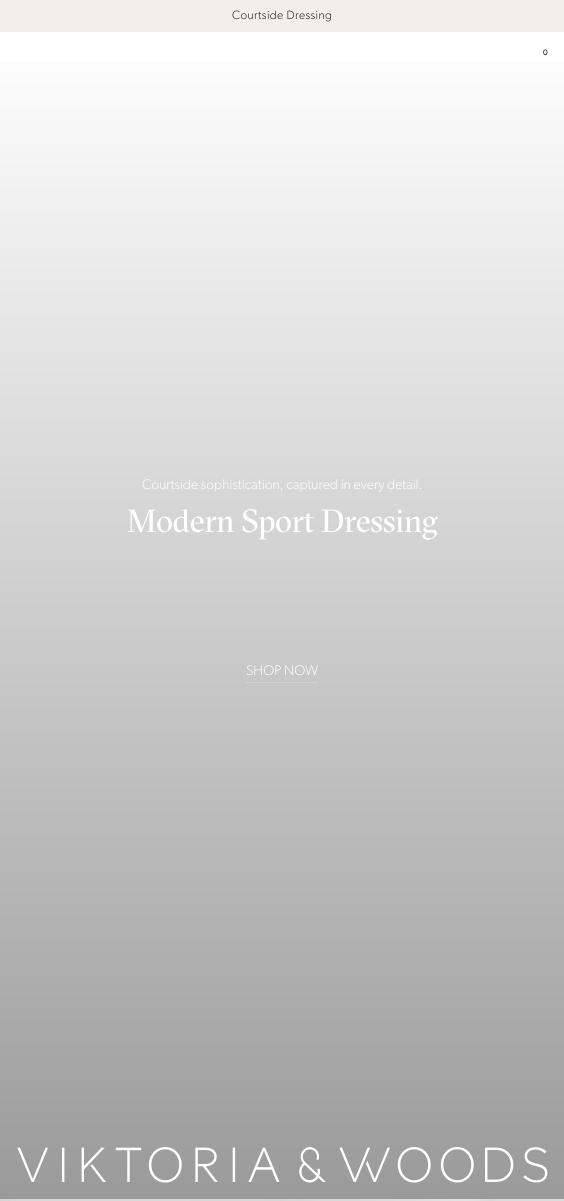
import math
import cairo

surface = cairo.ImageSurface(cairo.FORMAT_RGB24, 564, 1201)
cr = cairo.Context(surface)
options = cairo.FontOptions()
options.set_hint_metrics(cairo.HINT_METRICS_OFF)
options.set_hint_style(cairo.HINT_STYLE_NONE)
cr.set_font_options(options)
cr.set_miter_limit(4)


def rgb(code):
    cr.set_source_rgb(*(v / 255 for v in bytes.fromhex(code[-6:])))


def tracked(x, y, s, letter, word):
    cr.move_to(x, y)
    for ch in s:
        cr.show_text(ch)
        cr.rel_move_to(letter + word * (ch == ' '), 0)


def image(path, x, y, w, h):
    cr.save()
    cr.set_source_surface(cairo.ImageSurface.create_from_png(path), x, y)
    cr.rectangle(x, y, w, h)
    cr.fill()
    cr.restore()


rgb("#ffffff")
cr.paint()
rgb("#f1efeb")
cr.rectangle(0, 0, 564, 32)
cr.fill()
gradient = cairo.LinearGradient(282, 32, 282, 1199)
gradient.add_color_stop_rgba(0, 1, 1, 1, 1)
gradient.add_color_stop_rgba(1, 0.604, 0.604, 0.604, 1)
cr.set_source(gradient)
cr.rectangle(0, 61, 564, 1138)
cr.fill()
rgb("#d2d2d2")
cr.rectangle(246, 682, 72, 1)
cr.fill()
image("img/1.png", 17, 1147, 531, 36)
image("img/2.png", 0, 1199, 493, 2)
rgb("#dbdbdb")
cr.rectangle(493, 1199, 71, 2)
cr.fill()
cr.select_font_face("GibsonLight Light")
cr.set_font_size(12)
rgb("#211f1c")
tracked(232, 19, "Courtside Dressing", 0.4, 0)
cr.select_font_face("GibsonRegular")
cr.set_font_size(8)
cr.move_to(543, 55)
cr.show_text("0")
cr.select_font_face("GibsonLight Light")
cr.set_font_size(14)
rgb("#ffffff")
cr.move_to(142, 489)
cr.show_text("Courtside sophistication, captured in every detail.")
cr.select_font_face("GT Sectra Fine")
cr.set_font_size(32)
tracked(127, 532, "Modern Sport Dressing", -0.5, 0)
cr.select_font_face("GibsonLight Light")
cr.set_font_size(14)
cr.move_to(246, 675)
cr.show_text("SHOP NOW")
surface.write_to_png("page.png")
